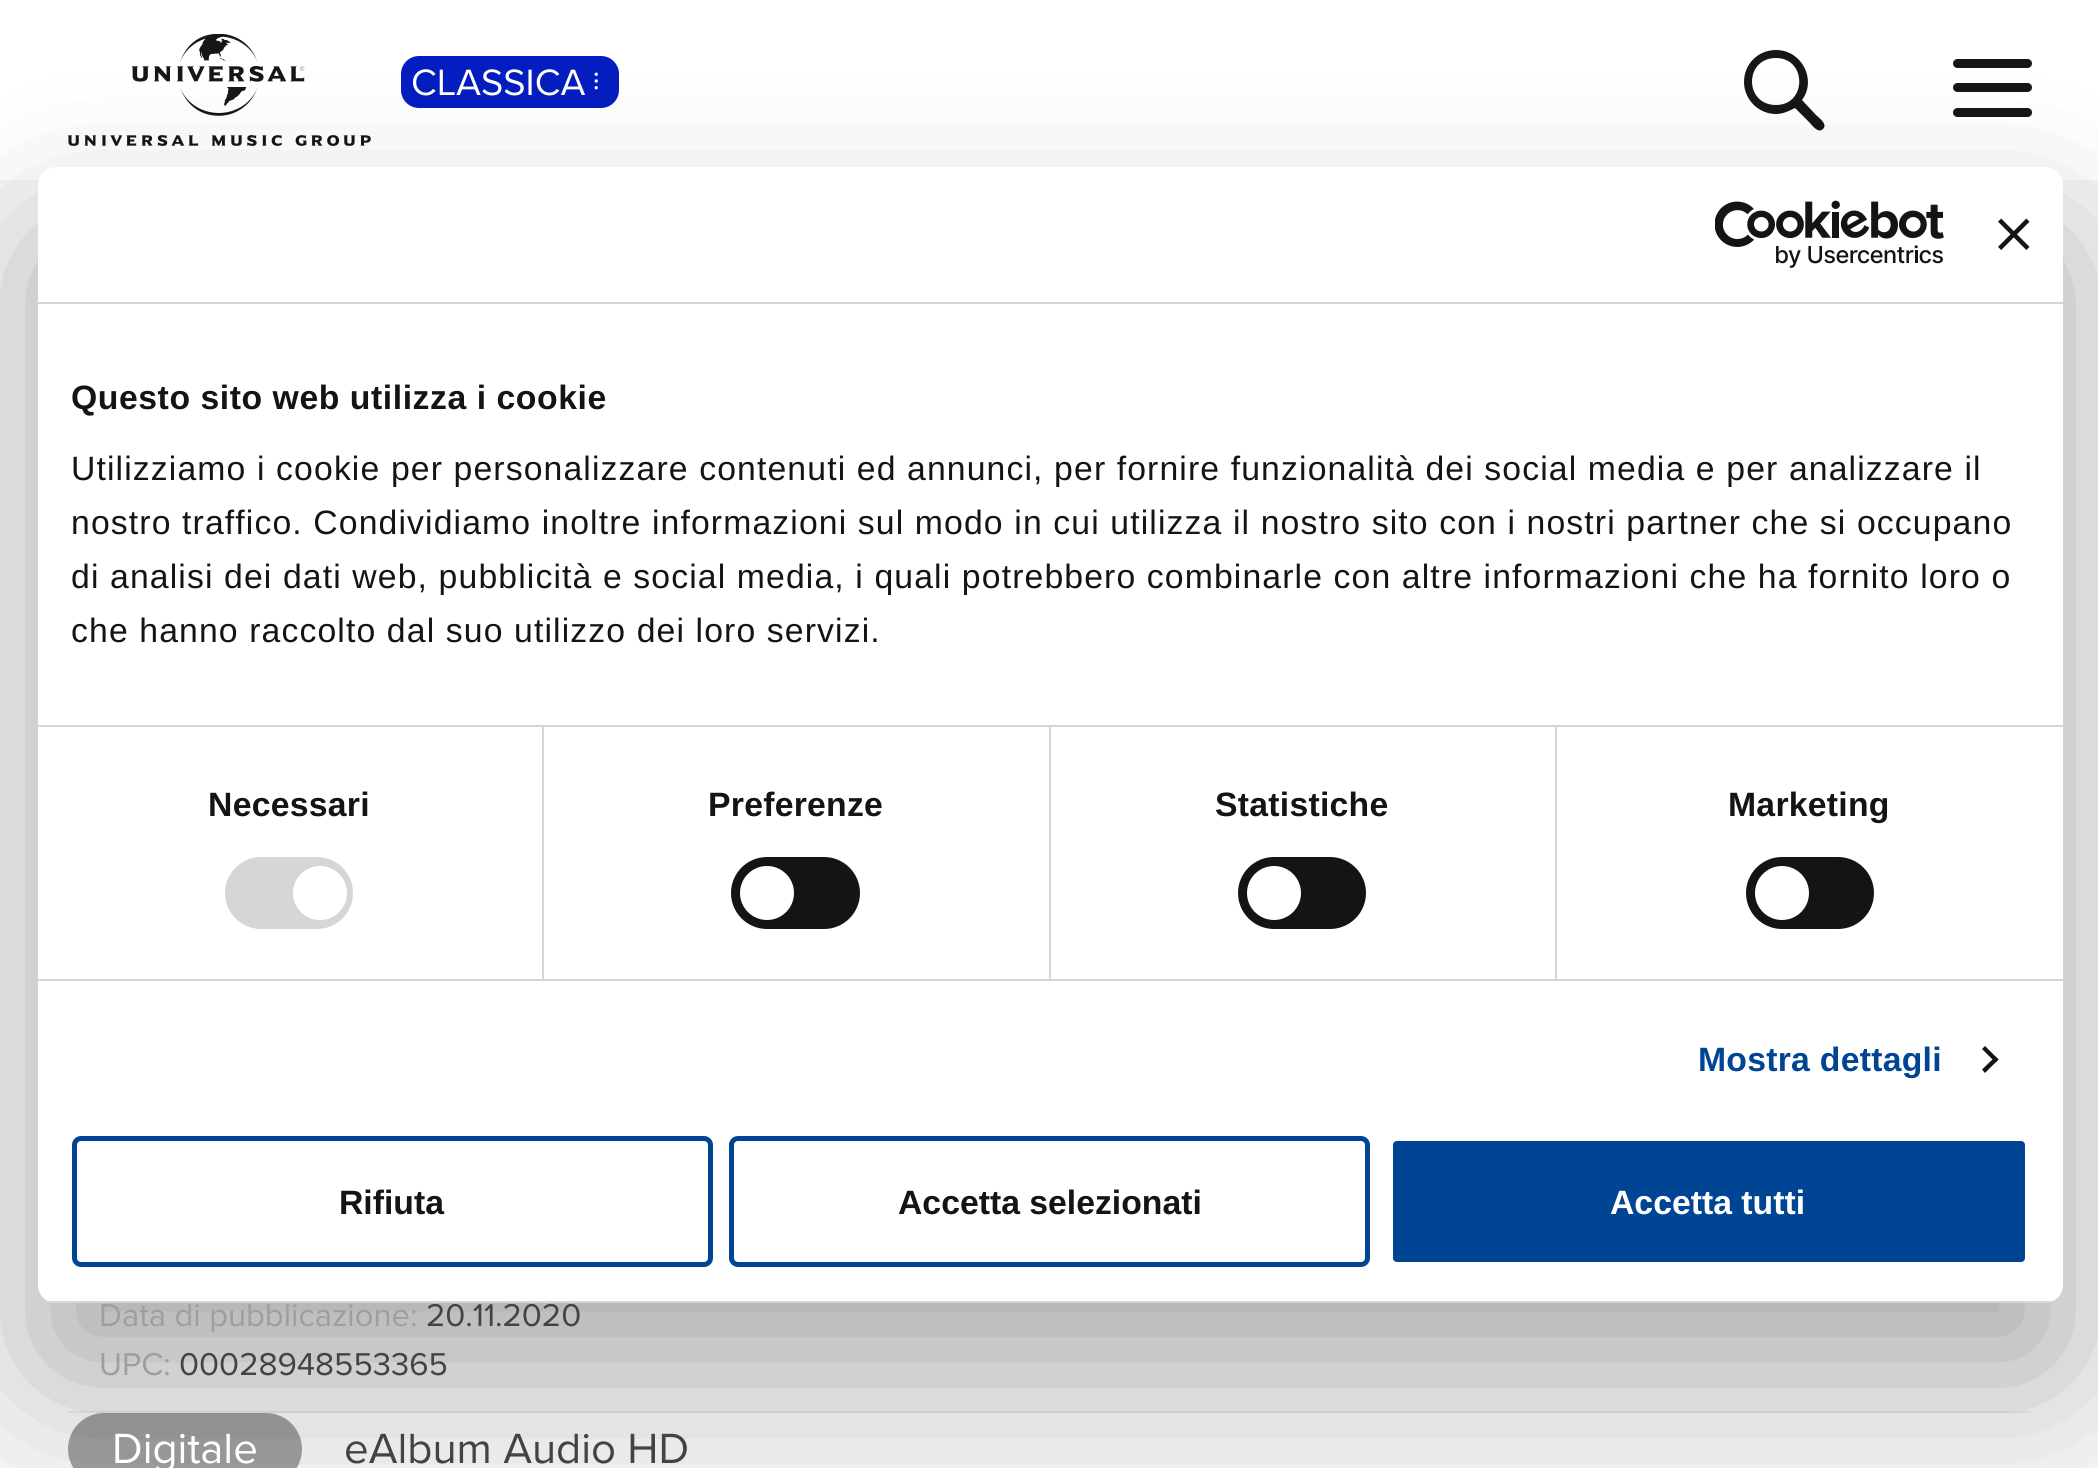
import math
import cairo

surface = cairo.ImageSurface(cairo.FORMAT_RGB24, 2098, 1468)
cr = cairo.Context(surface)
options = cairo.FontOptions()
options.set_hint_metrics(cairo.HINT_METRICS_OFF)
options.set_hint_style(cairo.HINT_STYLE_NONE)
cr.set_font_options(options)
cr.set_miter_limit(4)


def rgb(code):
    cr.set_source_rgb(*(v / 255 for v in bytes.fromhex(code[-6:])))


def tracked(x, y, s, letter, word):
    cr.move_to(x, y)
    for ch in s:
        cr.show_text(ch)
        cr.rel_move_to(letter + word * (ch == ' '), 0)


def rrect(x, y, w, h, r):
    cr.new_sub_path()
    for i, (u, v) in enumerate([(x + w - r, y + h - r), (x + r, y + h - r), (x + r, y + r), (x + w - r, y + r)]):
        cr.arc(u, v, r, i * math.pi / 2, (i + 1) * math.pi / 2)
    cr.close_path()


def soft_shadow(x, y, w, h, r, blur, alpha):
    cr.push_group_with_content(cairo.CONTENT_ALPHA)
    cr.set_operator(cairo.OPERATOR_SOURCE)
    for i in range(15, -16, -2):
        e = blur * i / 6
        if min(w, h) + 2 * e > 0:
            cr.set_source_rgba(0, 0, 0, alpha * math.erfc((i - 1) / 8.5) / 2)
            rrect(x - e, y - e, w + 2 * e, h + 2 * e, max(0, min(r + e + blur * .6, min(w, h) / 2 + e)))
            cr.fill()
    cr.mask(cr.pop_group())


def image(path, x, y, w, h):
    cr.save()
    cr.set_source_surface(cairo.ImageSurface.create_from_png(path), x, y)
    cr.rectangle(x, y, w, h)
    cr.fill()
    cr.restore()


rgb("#f6f6f6")
cr.paint()
rgb("#ffffff")
cr.rectangle(0, 0, 2098, 180)
cr.fill()
image("img/1.png", 68, 34, 303, 112)
rgb("#041dc0")
rrect(401, 56, 218, 52, 18)
cr.fill()
image("img/2.png", 594, 72, 4, 18)
rgb("#161616")
cr.new_path()
cr.move_to(1776, 50)
cr.curve_to(1802, 50, 1817, 80, 1802, 100)
cr.line_to(1816, 115)
cr.curve_to(1819, 118, 1828, 124, 1823, 129)
cr.curve_to(1818, 134, 1812, 125, 1809, 122)
cr.line_to(1795, 108)
cr.curve_to(1789, 111, 1783, 114, 1776, 114)
cr.curve_to(1758, 114, 1744, 99, 1744, 82)
cr.curve_to(1744, 64, 1758, 50, 1776, 50)
cr.close_path()
cr.move_to(1776, 58)
cr.curve_to(1744, 58, 1744, 105, 1776, 105)
cr.curve_to(1807, 105, 1807, 58, 1776, 58)
cr.close_path()
cr.fill()
rrect(1953, 83, 79, 9, 4.5)
cr.fill()
rrect(1953, 59, 79, 9, 4.5)
cr.fill()
rrect(1953, 108, 79, 9, 4.5)
cr.fill()
rgb("#e8e8e8")
cr.rectangle(68, 1411, 1964, 2)
cr.fill()
rgb("#9e9e9e")
rrect(68, 1413, 234, 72, 36)
cr.fill()
rgb("#000000")
soft_shadow(38, 239, 2025, 1136, 18, 76.5, 0.3)
rgb("#ffffff")
rrect(38, 167, 2025, 1136, 18)
cr.fill()
rgb("#d6d6d6")
cr.rectangle(38, 302, 2025, 2)
cr.fill()
image("img/3.png", 1715, 200, 229, 68)
image("img/4.png", 1998, 218, 32, 32)
for x, y, w, h, color in [
    (38, 725, 2025, 2, "#d6d6d6"),
    (38, 979, 2025, 2, "#d6d6d6"),
    (542, 727, 2, 252, "#d6d6d6"),
]:
    rgb(color)
    cr.rectangle(x, y, w, h)
    cr.fill()
rrect(225, 857, 128, 72, 36)
cr.fill()
rgb("#ffffff")
cr.arc(320, 893, 27, 0, 2 * math.pi)
cr.fill()
rgb("#d6d6d6")
cr.rectangle(1049, 727, 2, 252)
cr.fill()
rgb("#141414")
rrect(731, 857, 129, 72, 36)
cr.fill()
rgb("#ffffff")
cr.arc(767, 893, 27, 0, 2 * math.pi)
cr.fill()
rgb("#d6d6d6")
cr.rectangle(1555, 727, 2, 252)
cr.fill()
rgb("#141414")
rrect(1238, 857, 128, 72, 36)
cr.fill()
rgb("#ffffff")
cr.arc(1274, 893, 27, 0, 2 * math.pi)
cr.fill()
rgb("#141414")
rrect(1746, 857, 128, 72, 36)
cr.fill()
rgb("#ffffff")
cr.arc(1782, 893, 27, 0, 2 * math.pi)
cr.fill()
rgb("#141414")
cr.new_path()
cr.move_to(1985, 1046)
cr.line_to(1998.5, 1059.5)
cr.line_to(1995.5, 1062.5)
cr.line_to(1982, 1049)
cr.close_path()
cr.fill()
cr.new_path()
cr.move_to(1995.5, 1056.5)
cr.line_to(1998.5, 1059.5)
cr.line_to(1985, 1073)
cr.line_to(1982, 1069.5)
cr.close_path()
cr.fill()
cr.save()
rrect(38, 167, 2025, 1136, 18)
cr.clip()
rgb("#d6d6d6")
cr.rectangle(48, 1301, 2005, 2)
cr.fill()
cr.restore()
rrect(74.5, 1138.5, 636, 126, 6.5)
rgb("#004494")
cr.set_line_width(5)
cr.stroke()
rrect(731.5, 1138.5, 636, 126, 6.5)
cr.stroke()
rrect(1390.5, 1138.5, 637, 126, 6.5)
cr.fill_preserve()
rgb("#ffffff")
cr.stroke()
cr.select_font_face("Proxima Nova")
cr.set_font_size(38)
cr.move_to(411, 95)
cr.show_text("CLASSICA")
cr.select_font_face("Liberation Sans", cairo.FONT_SLANT_NORMAL, cairo.FONT_WEIGHT_BOLD)
cr.set_font_size(33.75)
rgb("#141414")
tracked(71, 409, "Questo sito web utilizza i cookie", 0.55, 0)
cr.select_font_face("Liberation Sans")
for x, y, s in [
    (71, 480, "Utilizziamo i cookie per personalizzare contenuti ed annunci, per fornire funzionalità dei social media e per analizzare il"),
    (71, 534, "nostro traffico. Condividiamo inoltre informazioni sul modo in cui utilizza il nostro sito con i nostri partner che si occupano"),
    (71, 588, "di analisi dei dati web, pubblicità e social media, i quali potrebbero combinarle con altre informazioni che ha fornito loro o"),
    (71, 642, "che hanno raccolto dal suo utilizzo dei loro servizi."),
]:
    tracked(x, y, s, 1.12, 0)
cr.select_font_face("Liberation Sans", cairo.FONT_SLANT_NORMAL, cairo.FONT_WEIGHT_BOLD)
for x, y, s in [
    (208, 816, "Necessari"),
    (708, 816, "Preferenze"),
    (1215, 816, "Statistiche"),
    (1728, 816, "Marketing"),
]:
    tracked(x, y, s, 0.25, 0)
rgb("#004494")
tracked(1698, 1071, "Mostra dettagli", 0.25, 0)
rgb("#141414")
cr.move_to(339, 1214)
cr.show_text("Rifiuta")
cr.move_to(898, 1214)
cr.show_text("Accetta selezionati")
rgb("#ffffff")
cr.move_to(1610, 1214)
cr.show_text("Accetta tutti")
cr.select_font_face("Proxima Nova")
cr.set_font_size(32.75)
rgb("#9e9e9e")
cr.move_to(99, 1326)
cr.show_text("Data di pubblicazione:")
rgb("#434343")
cr.move_to(426, 1326)
cr.show_text("20.11.2020")
rgb("#9e9e9e")
cr.move_to(99, 1375)
cr.show_text("UPC:")
rgb("#434343")
cr.move_to(179, 1375)
cr.show_text("00028948553365")
cr.set_font_size(43.75)
rgb("#ffffff")
cr.move_to(112, 1463)
cr.show_text("Digitale")
rgb("#434343")
cr.move_to(344, 1463)
cr.show_text("eAlbum Audio HD")
surface.write_to_png("page.png")
